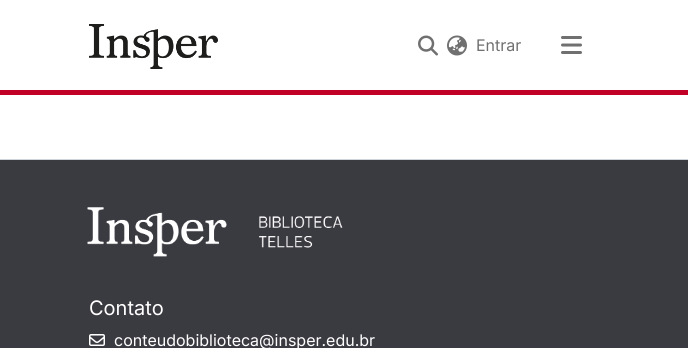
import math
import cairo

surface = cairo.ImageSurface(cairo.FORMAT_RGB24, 688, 348)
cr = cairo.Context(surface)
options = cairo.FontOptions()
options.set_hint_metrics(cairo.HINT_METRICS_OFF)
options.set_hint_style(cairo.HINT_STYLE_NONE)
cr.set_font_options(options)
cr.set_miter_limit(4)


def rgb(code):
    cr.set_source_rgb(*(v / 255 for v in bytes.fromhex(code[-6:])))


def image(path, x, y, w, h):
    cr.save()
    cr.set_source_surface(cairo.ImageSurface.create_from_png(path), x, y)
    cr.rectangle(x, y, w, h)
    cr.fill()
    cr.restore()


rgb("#ffffff")
cr.paint()
rgb("#c00026")
cr.rectangle(0, 90, 688, 5)
cr.fill()
image("img/1.png", 89, 24, 129, 45)
image("img/2.png", 418, 35, 20, 21)
image("img/3.png", 447, 35, 20, 21)
image("img/4.png", 561, 36, 21, 18)
rgb("#3a3a41")
cr.rectangle(0, 160, 688, 188)
cr.fill()
rgb("#ced4da")
cr.rectangle(0, 159, 688, 1)
cr.fill()
image("img/5.png", 87, 207, 256, 50)
image("img/6.png", 89, 334, 16, 12)
cr.select_font_face("Inter")
cr.set_font_size(16)
rgb("#707070")
cr.move_to(476, 51)
cr.show_text("Entrar")
cr.set_font_size(20)
rgb("#ffffff")
cr.move_to(89, 315)
cr.show_text("Contato")
cr.set_font_size(16)
cr.move_to(114, 346)
cr.show_text("conteudobiblioteca@insper.edu.br")
surface.write_to_png("page.png")
